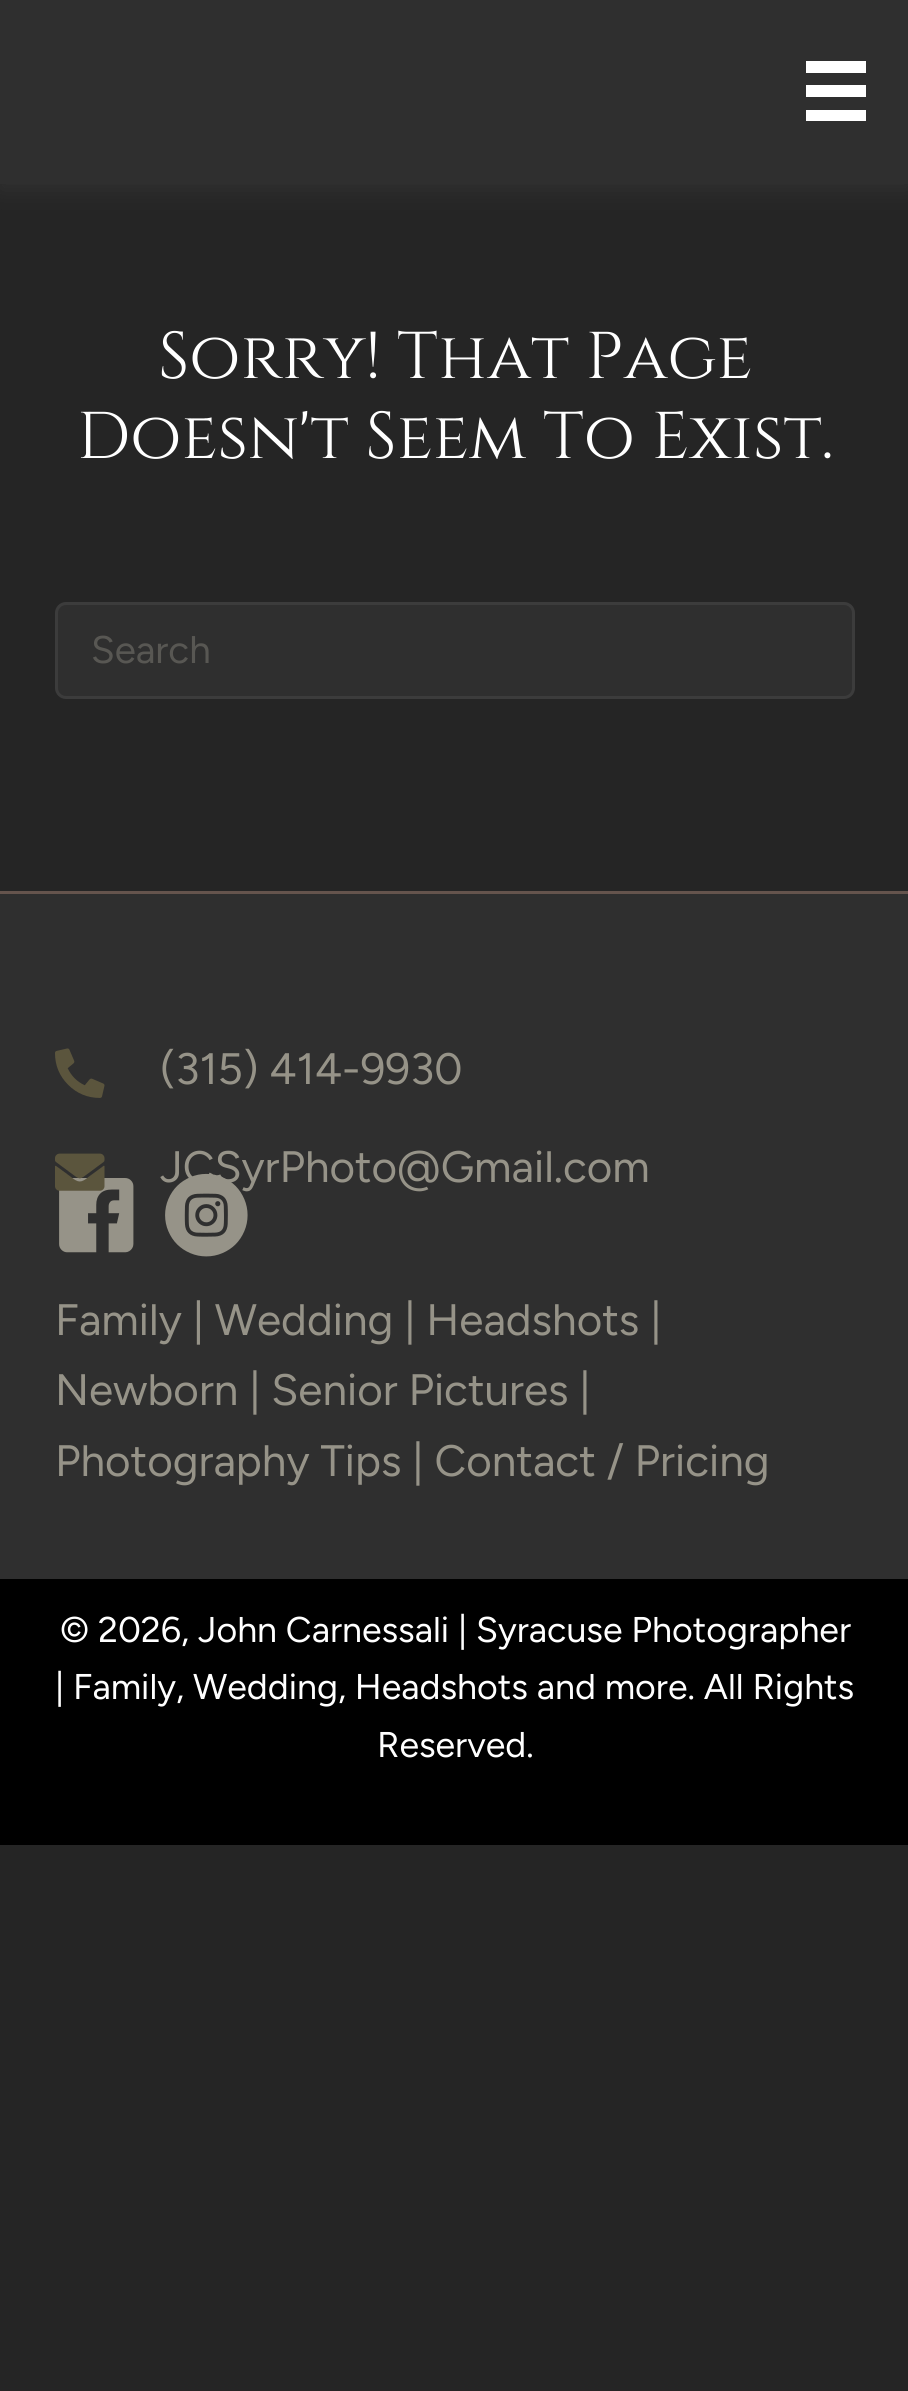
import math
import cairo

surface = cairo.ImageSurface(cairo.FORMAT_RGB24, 908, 2391)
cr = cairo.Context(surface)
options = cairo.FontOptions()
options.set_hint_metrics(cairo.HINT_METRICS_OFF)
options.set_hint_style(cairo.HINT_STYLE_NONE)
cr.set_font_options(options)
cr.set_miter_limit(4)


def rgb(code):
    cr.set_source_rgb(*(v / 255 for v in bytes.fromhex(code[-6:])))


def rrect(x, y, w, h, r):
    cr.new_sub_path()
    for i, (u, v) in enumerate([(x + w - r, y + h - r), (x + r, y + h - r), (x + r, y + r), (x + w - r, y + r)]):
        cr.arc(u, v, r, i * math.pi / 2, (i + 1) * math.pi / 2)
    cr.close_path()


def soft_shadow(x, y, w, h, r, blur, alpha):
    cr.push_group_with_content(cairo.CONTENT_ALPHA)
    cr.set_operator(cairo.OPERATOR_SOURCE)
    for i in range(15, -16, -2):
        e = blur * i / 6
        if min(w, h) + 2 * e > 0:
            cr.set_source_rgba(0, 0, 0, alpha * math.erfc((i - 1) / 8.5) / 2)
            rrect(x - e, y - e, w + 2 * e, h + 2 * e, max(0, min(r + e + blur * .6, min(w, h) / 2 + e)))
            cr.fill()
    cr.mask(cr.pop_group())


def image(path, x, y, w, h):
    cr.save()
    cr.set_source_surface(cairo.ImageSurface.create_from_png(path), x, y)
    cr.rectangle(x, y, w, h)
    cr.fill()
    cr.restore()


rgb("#252525")
cr.paint()
rgb("#636363")
soft_shadow(0, 6, 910, 184, 0, 11, 0.2)
for x, y, w, h, color in [
    (0, 0, 908, 184, "#2f2f2f"),
    (806, 61, 60, 12, "#ffffff"),
    (806, 85, 60, 12, "#ffffff"),
    (806, 110, 60, 11, "#ffffff"),
]:
    rgb(color)
    cr.rectangle(x, y, w, h)
    cr.fill()
rgb("#2f2f2f")
rrect(56.5, 603.5, 797, 94, 9.5)
cr.fill_preserve()
rgb("#3c3c3c")
cr.set_line_width(3)
cr.stroke()
rgb("#2f2f2f")
cr.rectangle(0, 894, 908, 685)
cr.fill()
rgb("#65544d")
cr.rectangle(0, 891, 908, 3)
cr.fill()
image("img/1.png", 55, 1048, 50, 50)
image("img/3.png", 59, 1178, 75, 75)
image("img/2.png", 55, 1153, 50, 38)
image("img/4.png", 165, 1173, 83, 84)
rgb("#000000")
cr.rectangle(0, 1579, 908, 266)
cr.fill()
cr.select_font_face("Cinzel")
cr.set_font_size(66)
rgb("#ffffff")
cr.move_to(158, 378)
cr.show_text("Sorry! That Page")
cr.move_to(77, 458)
cr.show_text("Doesn't Seem To Exist.")
cr.select_font_face("Figtree")
cr.set_font_size(38.5)
rgb("#585753")
cr.move_to(91, 663)
cr.show_text("Search")
cr.set_font_size(44)
rgb("#969388")
for x, y, s in [
    (160, 1084, "(315) 414-9930"),
    (160, 1182, "JCSyrPhoto@Gmail.com"),
    (55, 1335, "Family | Wedding | Headshots |"),
    (55, 1405, "Newborn | Senior Pictures |"),
    (55, 1476, "Photography Tips | Contact / Pricing"),
]:
    cr.move_to(x, y)
    cr.show_text(s)
cr.set_font_size(35.75)
rgb("#ffffff")
for x, y, s in [
    (60, 1642, "© 2026, John Carnessali | Syracuse Photographer"),
    (55, 1699, "| Family, Wedding, Headshots and more. All Rights"),
    (377, 1757, "Reserved."),
]:
    cr.move_to(x, y)
    cr.show_text(s)
surface.write_to_png("page.png")
